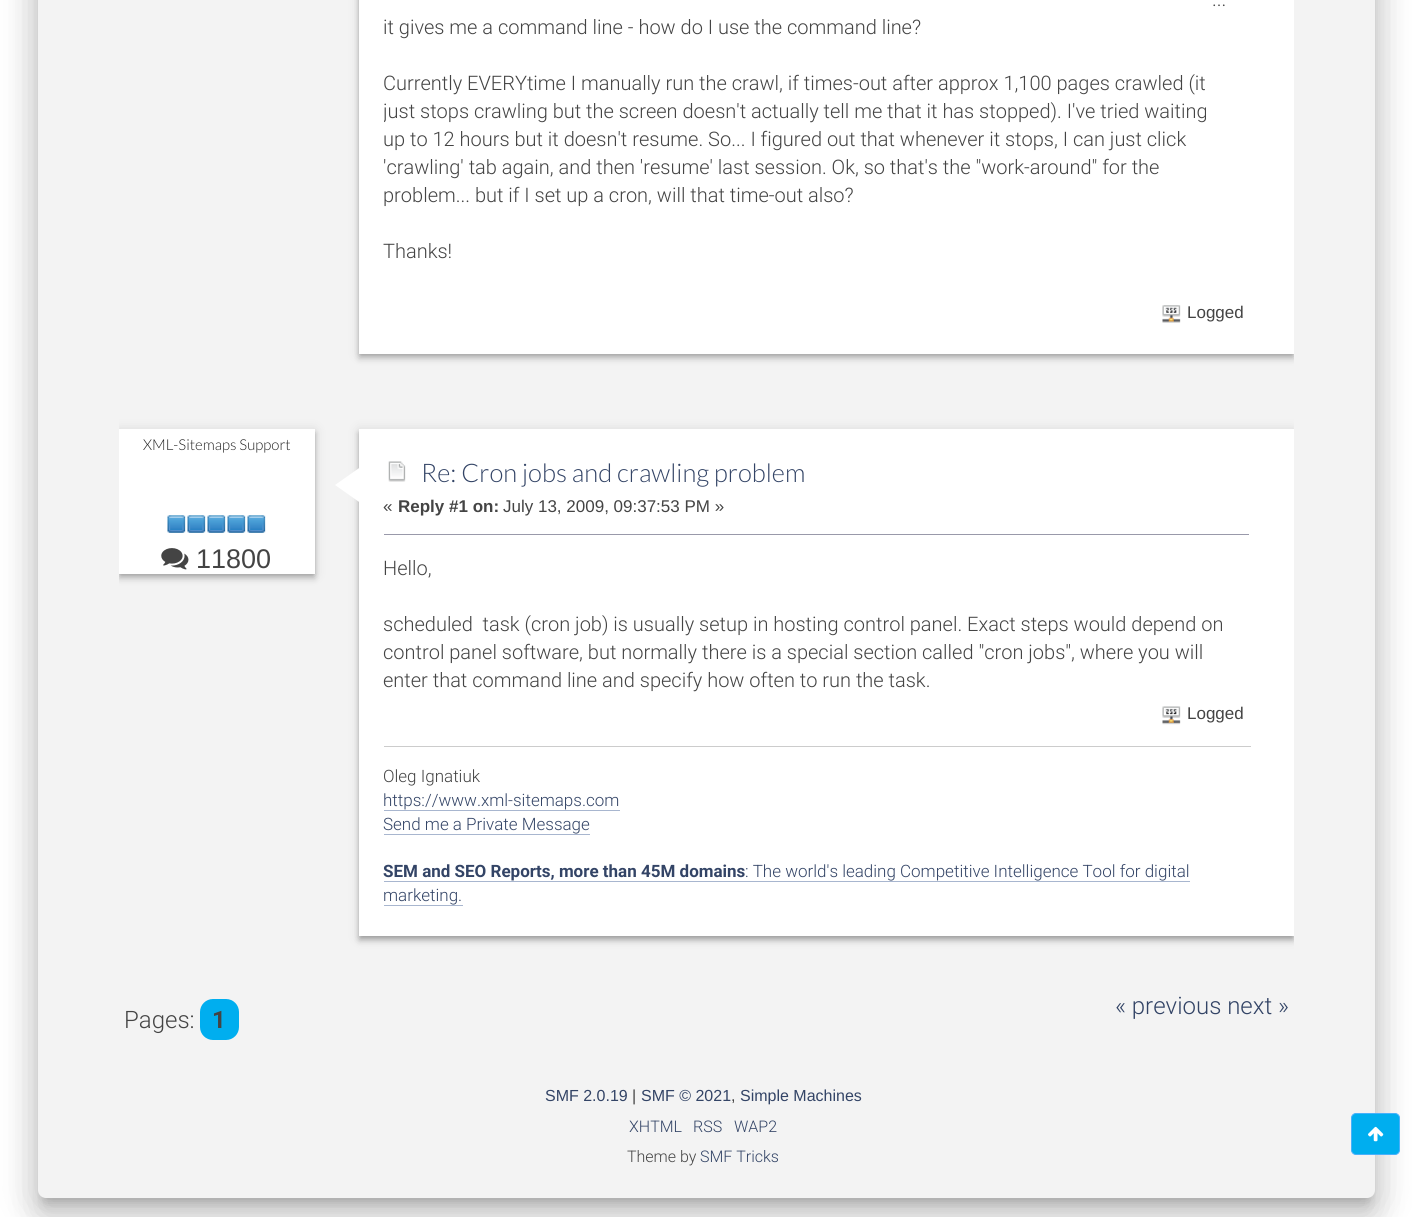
import math
import cairo

surface = cairo.ImageSurface(cairo.FORMAT_RGB24, 1412, 1217)
cr = cairo.Context(surface)
options = cairo.FontOptions()
options.set_hint_metrics(cairo.HINT_METRICS_OFF)
options.set_hint_style(cairo.HINT_STYLE_NONE)
cr.set_font_options(options)
cr.set_miter_limit(4)


def rgb(code):
    cr.set_source_rgb(*(v / 255 for v in bytes.fromhex(code[-6:])))


def rrect(x, y, w, h, r):
    cr.new_sub_path()
    for i, (u, v) in enumerate([(x + w - r, y + h - r), (x + r, y + h - r), (x + r, y + r), (x + w - r, y + r)]):
        cr.arc(u, v, r, i * math.pi / 2, (i + 1) * math.pi / 2)
    cr.close_path()


def soft_shadow(x, y, w, h, r, blur, alpha):
    cr.push_group_with_content(cairo.CONTENT_ALPHA)
    cr.set_operator(cairo.OPERATOR_SOURCE)
    for i in range(15, -16, -2):
        e = blur * i / 6
        if min(w, h) + 2 * e > 0:
            cr.set_source_rgba(0, 0, 0, alpha * math.erfc((i - 1) / 8.5) / 2)
            rrect(x - e, y - e, w + 2 * e, h + 2 * e, max(0, min(r + e + blur * .6, min(w, h) / 2 + e)))
            cr.fill()
    cr.mask(cr.pop_group())


def image(path, x, y, w, h):
    cr.save()
    cr.set_source_surface(cairo.ImageSurface.create_from_png(path), x, y)
    cr.rectangle(x, y, w, h)
    cr.fill()
    cr.restore()


rgb("#ffffff")
cr.paint()
rgb("#000000")
soft_shadow(44, -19, 1325, 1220, 1, 6, 0.2)
soft_shadow(31, -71, 1350, 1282, 14, 19, 0.12)
soft_shadow(35, -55, 1343, 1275, 10, 15, 0.14)
rgb("#f3f3f3")
rrect(38, -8, 1337, 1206, 8)
cr.fill()
cr.save()
cr.rectangle(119, 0, 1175, 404)
cr.clip()
rgb("#000000")
soft_shadow(360, -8, 933, 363, 0, 2.5, 0.2)
soft_shadow(359, -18, 935, 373, 0, 6, 0.12)
soft_shadow(359, -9, 935, 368, 0, 3, 0.14)
cr.restore()
rgb("#ffffff")
cr.rectangle(359, 0, 935, 354)
cr.fill()
image("img/1.png", 1162, 305, 19, 18)
cr.save()
cr.rectangle(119, 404, 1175, 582)
cr.clip()
rgb("#000000")
soft_shadow(120, 433, 194, 142, 0, 2.5, 0.2)
soft_shadow(119, 430, 196, 145, 0, 6, 0.12)
soft_shadow(119, 434, 196, 145, 0, 3, 0.14)
cr.restore()
cr.rectangle(119, 429, 196, 145)
cr.fill()
image("img/2.png", 167, 515, 19, 18)
image("img/2.png", 187, 515, 19, 18)
image("img/2.png", 207, 515, 19, 18)
image("img/2.png", 227, 515, 19, 18)
image("img/2.png", 247, 515, 19, 18)
image("img/3.png", 161, 548, 28, 22)
cr.save()
cr.rectangle(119, 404, 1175, 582)
cr.clip()
rgb("#000000")
soft_shadow(360, 433, 933, 505, 0, 2.5, 0.2)
soft_shadow(359, 430, 935, 508, 0, 6, 0.12)
soft_shadow(359, 434, 935, 507, 0, 3, 0.14)
cr.restore()
cr.rectangle(359, 429, 935, 507)
cr.fill()
cr.new_path()
cr.move_to(379, 454)
cr.line_to(379, 516)
cr.line_to(335, 485)
cr.close_path()
cr.fill()
image("img/4.png", 388, 461, 18, 21)
rgb("#9999aa")
cr.rectangle(384, 534, 865, 1)
cr.fill()
image("img/5.png", 1162, 706, 19, 19)
for x, y, w, h, color in [
    (384, 746, 867, 1, "#cccccc"),
    (384, 810, 236, 1, "#a8b6cf"),
    (384, 834, 206, 1, "#a8b6cf"),
    (384, 881, 806, 1, "#a8b6cf"),
    (384, 905, 79, 1, "#a8b6cf"),
]:
    rgb(color)
    cr.rectangle(x, y, w, h)
    cr.fill()
rgb("#00aeef")
rrect(200, 999, 39, 41, 13)
cr.fill()
rrect(1351.5, 1113.5, 48, 41, 4.5)
cr.fill_preserve()
rgb("#48b0fb")
cr.set_line_width(1)
cr.stroke()
image("img/6.png", 1368, 1126, 16, 16)
cr.select_font_face("Roboto Light")
cr.set_font_size(20)
rgb("#444444")
for x, y, s in [
    (1212, 6, "..."),
    (383, 34, "it gives me a command line - how do I use the command line?"),
    (383, 90, "Currently EVERYtime I manually run the crawl, if times-out after approx 1,100 pages crawled (it"),
]:
    cr.move_to(x, y)
    cr.show_text(s)
cr.save()
cr.rectangle(384, 0, 885, 299)
cr.clip()
cr.move_to(383, 118)
cr.show_text("just stops crawling but the screen doesn't actually tell me that it has stopped). I've tried waiting")
cr.restore()
for x, y, s in [
    (383, 146, "up to 12 hours but it doesn't resume. So... I figured out that whenever it stops, I can just click"),
    (383, 174, "'crawling' tab again, and then 'resume' last session. Ok, so that's the \"work-around\" for the"),
    (383, 202, "problem... but if I set up a cron, will that time-out also?"),
    (383, 258, "Thanks!"),
]:
    cr.move_to(x, y)
    cr.show_text(s)
cr.select_font_face("Liberation Sans")
cr.set_font_size(17)
cr.move_to(1187, 318)
cr.show_text("Logged")
cr.select_font_face("Lato Light")
cr.set_font_size(15)
rgb("#222222")
cr.move_to(143, 450)
cr.show_text("XML-Sitemaps Support")
cr.select_font_face("Liberation Sans")
cr.set_font_size(27)
rgb("#444444")
cr.move_to(196, 568)
cr.show_text("11800")
cr.select_font_face("Lato Light")
cr.set_font_size(25.6)
rgb("#334466")
cr.move_to(421, 482)
cr.show_text("Re: Cron jobs and crawling problem")
cr.select_font_face("Liberation Sans")
cr.set_font_size(17)
rgb("#444444")
cr.move_to(383, 512)
cr.show_text("«")
cr.select_font_face("Liberation Sans", cairo.FONT_SLANT_NORMAL, cairo.FONT_WEIGHT_BOLD)
cr.move_to(398, 512)
cr.show_text("Reply #1 on:")
cr.select_font_face("Liberation Sans")
cr.move_to(503, 512)
cr.show_text("July 13, 2009, 09:37:53 PM »")
cr.select_font_face("Roboto Light")
cr.set_font_size(20)
for x, y, s in [
    (383, 575, "Hello,"),
    (383, 631, "scheduled  task (cron job) is usually setup in hosting control panel. Exact steps would depend on"),
    (383, 659, "control panel software, but normally there is a special section called \"cron jobs\", where you will"),
    (383, 687, "enter that command line and specify how often to run the task."),
]:
    cr.move_to(x, y)
    cr.show_text(s)
cr.select_font_face("Liberation Sans")
cr.set_font_size(17)
cr.move_to(1187, 719)
cr.show_text("Logged")
cr.select_font_face("Roboto Light")
cr.move_to(383, 782)
cr.show_text("Oleg Ignatiuk")
rgb("#334466")
cr.move_to(383, 806)
cr.show_text("https://www.xml-sitemaps.com")
cr.move_to(383, 830)
cr.show_text("Send me a Private Message")
cr.select_font_face("Roboto", cairo.FONT_SLANT_NORMAL, cairo.FONT_WEIGHT_BOLD)
cr.move_to(383, 877)
cr.show_text("SEM and SEO Reports, more than 45M domains")
cr.select_font_face("Roboto Light")
cr.move_to(745, 877)
cr.show_text(": The world's leading Competitive Intelligence Tool for digital")
cr.move_to(383, 901)
cr.show_text("marketing.")
cr.set_font_size(24)
cr.move_to(1115, 1014)
cr.show_text("« previous next »")
rgb("#444444")
cr.move_to(124, 1028)
cr.show_text("Pages:")
cr.select_font_face("Roboto", cairo.FONT_SLANT_NORMAL, cairo.FONT_WEIGHT_BOLD)
cr.move_to(212, 1028)
cr.show_text("1")
cr.select_font_face("Liberation Sans")
cr.set_font_size(16)
rgb("#334466")
cr.move_to(545, 1101)
cr.show_text("SMF 2.0.19")
rgb("#444444")
cr.move_to(632, 1101)
cr.show_text("|")
rgb("#334466")
cr.move_to(641, 1101)
cr.show_text("SMF © 2021")
rgb("#444444")
cr.move_to(731, 1101)
cr.show_text(",")
rgb("#334466")
cr.move_to(740, 1101)
cr.show_text("Simple Machines")
cr.select_font_face("Roboto Light")
for x, y, s in [
    (629, 1132, "XHTML"),
    (693, 1132, "RSS"),
    (734, 1132, "WAP2"),
]:
    cr.move_to(x, y)
    cr.show_text(s)
rgb("#444444")
cr.move_to(627, 1162)
cr.show_text("Theme by")
rgb("#334466")
cr.move_to(700, 1162)
cr.show_text("SMF Tricks")
surface.write_to_png("page.png")
